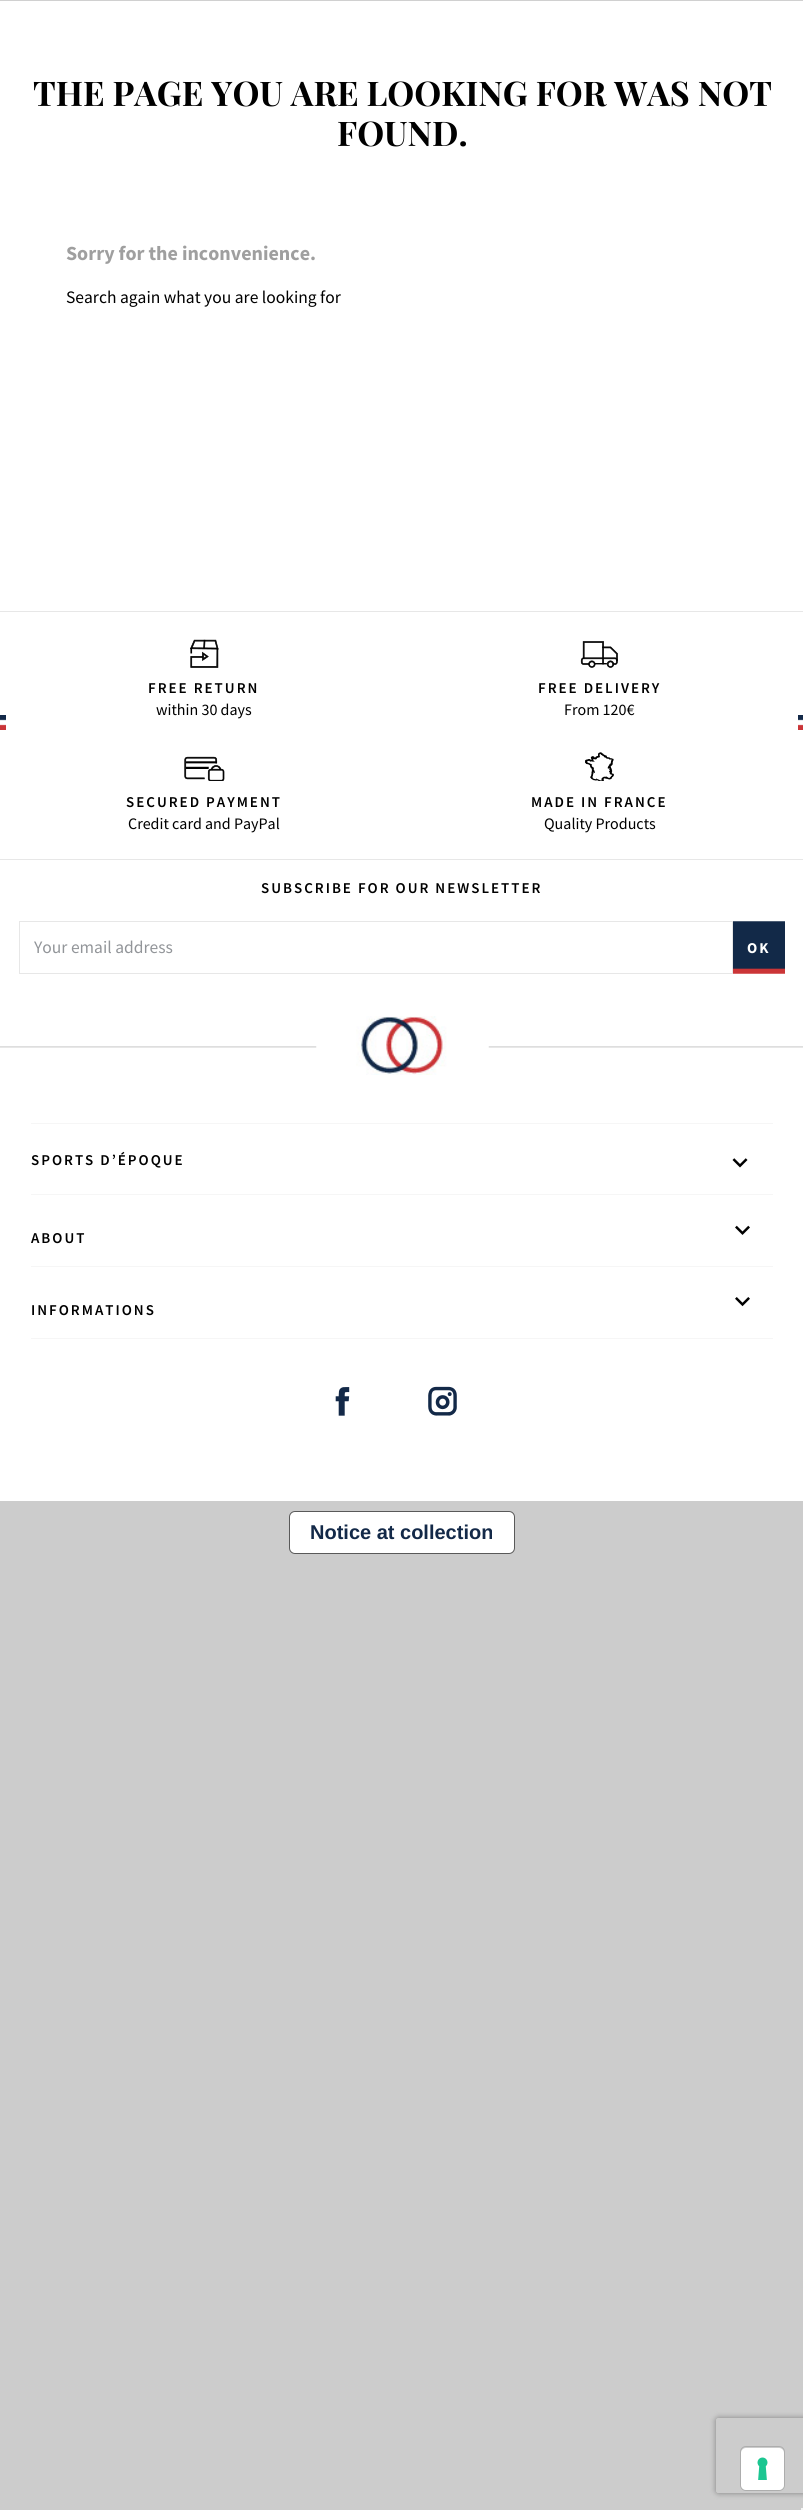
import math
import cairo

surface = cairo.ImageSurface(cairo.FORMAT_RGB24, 803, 2510)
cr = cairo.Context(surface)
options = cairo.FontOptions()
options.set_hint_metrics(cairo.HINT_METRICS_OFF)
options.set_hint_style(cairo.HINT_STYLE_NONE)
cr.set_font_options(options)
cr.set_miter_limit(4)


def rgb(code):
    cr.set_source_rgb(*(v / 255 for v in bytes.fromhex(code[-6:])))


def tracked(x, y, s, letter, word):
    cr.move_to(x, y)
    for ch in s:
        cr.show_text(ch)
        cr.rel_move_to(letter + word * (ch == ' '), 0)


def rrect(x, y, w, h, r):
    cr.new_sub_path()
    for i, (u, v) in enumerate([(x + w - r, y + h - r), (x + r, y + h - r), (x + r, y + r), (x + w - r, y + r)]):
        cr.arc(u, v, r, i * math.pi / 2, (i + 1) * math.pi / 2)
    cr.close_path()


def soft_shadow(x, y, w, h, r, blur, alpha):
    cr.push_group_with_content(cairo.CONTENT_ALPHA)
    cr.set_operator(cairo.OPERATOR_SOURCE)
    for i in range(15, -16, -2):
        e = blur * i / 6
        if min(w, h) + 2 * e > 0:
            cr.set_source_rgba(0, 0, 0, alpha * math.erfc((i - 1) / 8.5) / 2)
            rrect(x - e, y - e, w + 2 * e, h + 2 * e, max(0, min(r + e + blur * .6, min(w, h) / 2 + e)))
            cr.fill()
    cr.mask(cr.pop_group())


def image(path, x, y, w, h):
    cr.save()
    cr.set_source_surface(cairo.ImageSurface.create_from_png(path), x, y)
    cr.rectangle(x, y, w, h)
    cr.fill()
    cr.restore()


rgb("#cccccc")
cr.paint()
for x, y, w, h, color in [
    (0, 1, 803, 1500, "#ffffff"),
    (0, 0, 803, 1, "#d0d0d0"),
    (0, 611, 803, 1, "#e7e7e7"),
    (0, 859, 803, 1, "#e7e7e7"),
]:
    rgb(color)
    cr.rectangle(x, y, w, h)
    cr.fill()
image("img/5.png", 0, 715, 803, 15)
rgb("#ffffff")
cr.rectangle(6, 715, 792, 15)
cr.fill()
image("img/1.png", 190, 639, 29, 29)
image("img/2.png", 580, 641, 38, 27)
image("img/3.png", 184, 756, 41, 25)
image("img/4.png", 585, 752, 29, 29)
cr.rectangle(19.5, 921.5, 713, 52)
rgb("#e7e7e7")
cr.set_line_width(1)
cr.stroke()
image("img/6.png", 733, 921, 52, 53)
image("img/7.png", 0, 1046, 803, 2)
image("img/8.png", 316, 1016, 173, 59)
rgb("#f6f6f6")
cr.rectangle(31, 1194, 742, 1)
cr.fill()
cr.rectangle(31, 1123, 742, 1)
cr.fill()
image("img/9.png", 732, 1158, 16, 10)
cr.rectangle(31, 1266, 742, 1)
cr.fill()
image("img/10.png", 735, 1225, 15, 10)
cr.rectangle(31, 1338, 742, 1)
cr.fill()
image("img/11.png", 735, 1297, 15, 10)
image("img/12.png", 335, 1387, 15, 29)
image("img/13.png", 428, 1386, 29, 30)
rgb("#ffffff")
rrect(289.5, 1511.5, 225, 42, 5.5)
cr.fill_preserve()
rgb("#595959")
cr.stroke()
cr.save()
cr.set_fill_rule(cairo.FILL_RULE_EVEN_ODD)
cr.new_path()
cr.move_to(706, 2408)
cr.line_to(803, 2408)
cr.line_to(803, 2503)
cr.line_to(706, 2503)
cr.close_path()
cr.move_to(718.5, 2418)
cr.line_to(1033.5, 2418)
cr.curve_to(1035, 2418, 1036, 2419, 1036, 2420.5)
cr.line_to(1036, 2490.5)
cr.curve_to(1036, 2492, 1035, 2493, 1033.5, 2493)
cr.line_to(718.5, 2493)
cr.curve_to(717, 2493, 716, 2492, 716, 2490.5)
cr.line_to(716, 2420.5)
cr.curve_to(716, 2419, 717, 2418, 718.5, 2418)
cr.close_path()
cr.clip()
rgb("#808080")
soft_shadow(716, 2418, 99, 75, 2.5, 3, 1)
cr.restore()
rrect(740.5, 2446.5, 44, 44, 5.5)
rgb("#adadad")
cr.stroke()
rgb("#ffffff")
rrect(741, 2448, 43, 42, 5)
cr.fill()
image("img/14.png", 757, 2457, 11, 23)
rgb("#f5f5f5")
cr.rectangle(801, 2508, 2, 2)
cr.fill()
cr.select_font_face("Playfair Display", cairo.FONT_SLANT_NORMAL, cairo.FONT_WEIGHT_BOLD)
cr.set_font_size(34)
rgb("#000000")
cr.move_to(33, 106)
cr.show_text("THE PAGE YOU ARE LOOKING FOR WAS NOT")
cr.move_to(337, 146)
cr.show_text("FOUND.")
cr.select_font_face("Source Sans Pro", cairo.FONT_SLANT_NORMAL, cairo.FONT_WEIGHT_BOLD)
cr.set_font_size(20)
rgb("#9f9f9f")
cr.move_to(66, 260)
cr.show_text("Sorry for the inconvenience.")
cr.select_font_face("Source Sans Pro")
cr.set_font_size(17.5)
rgb("#000000")
cr.move_to(66, 303)
cr.show_text("Search again what you are looking for")
cr.select_font_face("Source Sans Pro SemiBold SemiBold")
cr.set_font_size(15)
tracked(148, 693, "FREE RETURN", 2, 0)
cr.select_font_face("Source Sans Pro")
cr.set_font_size(16)
cr.move_to(156, 715)
cr.show_text("within 30 days")
cr.select_font_face("Source Sans Pro SemiBold SemiBold")
cr.set_font_size(15)
tracked(538, 693, "FREE DELIVERY", 2, 0)
cr.select_font_face("Source Sans Pro")
cr.set_font_size(16)
cr.move_to(564, 715)
cr.show_text("From 120€")
cr.select_font_face("Source Sans Pro SemiBold SemiBold")
cr.set_font_size(15)
tracked(126, 807, "SECURED PAYMENT", 2, 0)
cr.select_font_face("Source Sans Pro")
cr.set_font_size(16)
cr.move_to(128, 829)
cr.show_text("Credit card and PayPal")
cr.select_font_face("Source Sans Pro SemiBold SemiBold")
cr.set_font_size(15)
tracked(531, 807, "MADE IN FRANCE", 2, 0)
cr.select_font_face("Source Sans Pro")
cr.set_font_size(16)
cr.move_to(544, 829)
cr.show_text("Quality Products")
cr.select_font_face("Source Sans Pro SemiBold SemiBold")
cr.set_font_size(15)
tracked(261, 893, "SUBSCRIBE FOR OUR NEWSLETTER", 2, 0)
cr.select_font_face("Source Sans Pro")
cr.set_font_size(17.5)
rgb("#929599")
cr.move_to(34, 953)
cr.show_text("Your email address")
cr.select_font_face("Source Sans Pro", cairo.FONT_SLANT_NORMAL, cairo.FONT_WEIGHT_BOLD)
cr.set_font_size(15)
rgb("#ffffff")
tracked(747, 953, "OK", 2, 0)
cr.select_font_face("Source Sans Pro SemiBold SemiBold")
rgb("#000000")
for x, y, s in [
    (31, 1165, "SPORTS D’ÉPOQUE"),
    (31, 1243, "ABOUT"),
    (31, 1315, "INFORMATIONS"),
]:
    tracked(x, y, s, 2, 0)
cr.select_font_face("Liberation Sans", cairo.FONT_SLANT_NORMAL, cairo.FONT_WEIGHT_BOLD)
cr.set_font_size(20)
rgb("#132948")
cr.move_to(310, 1539)
cr.show_text("Notice at collection")
surface.write_to_png("page.png")
